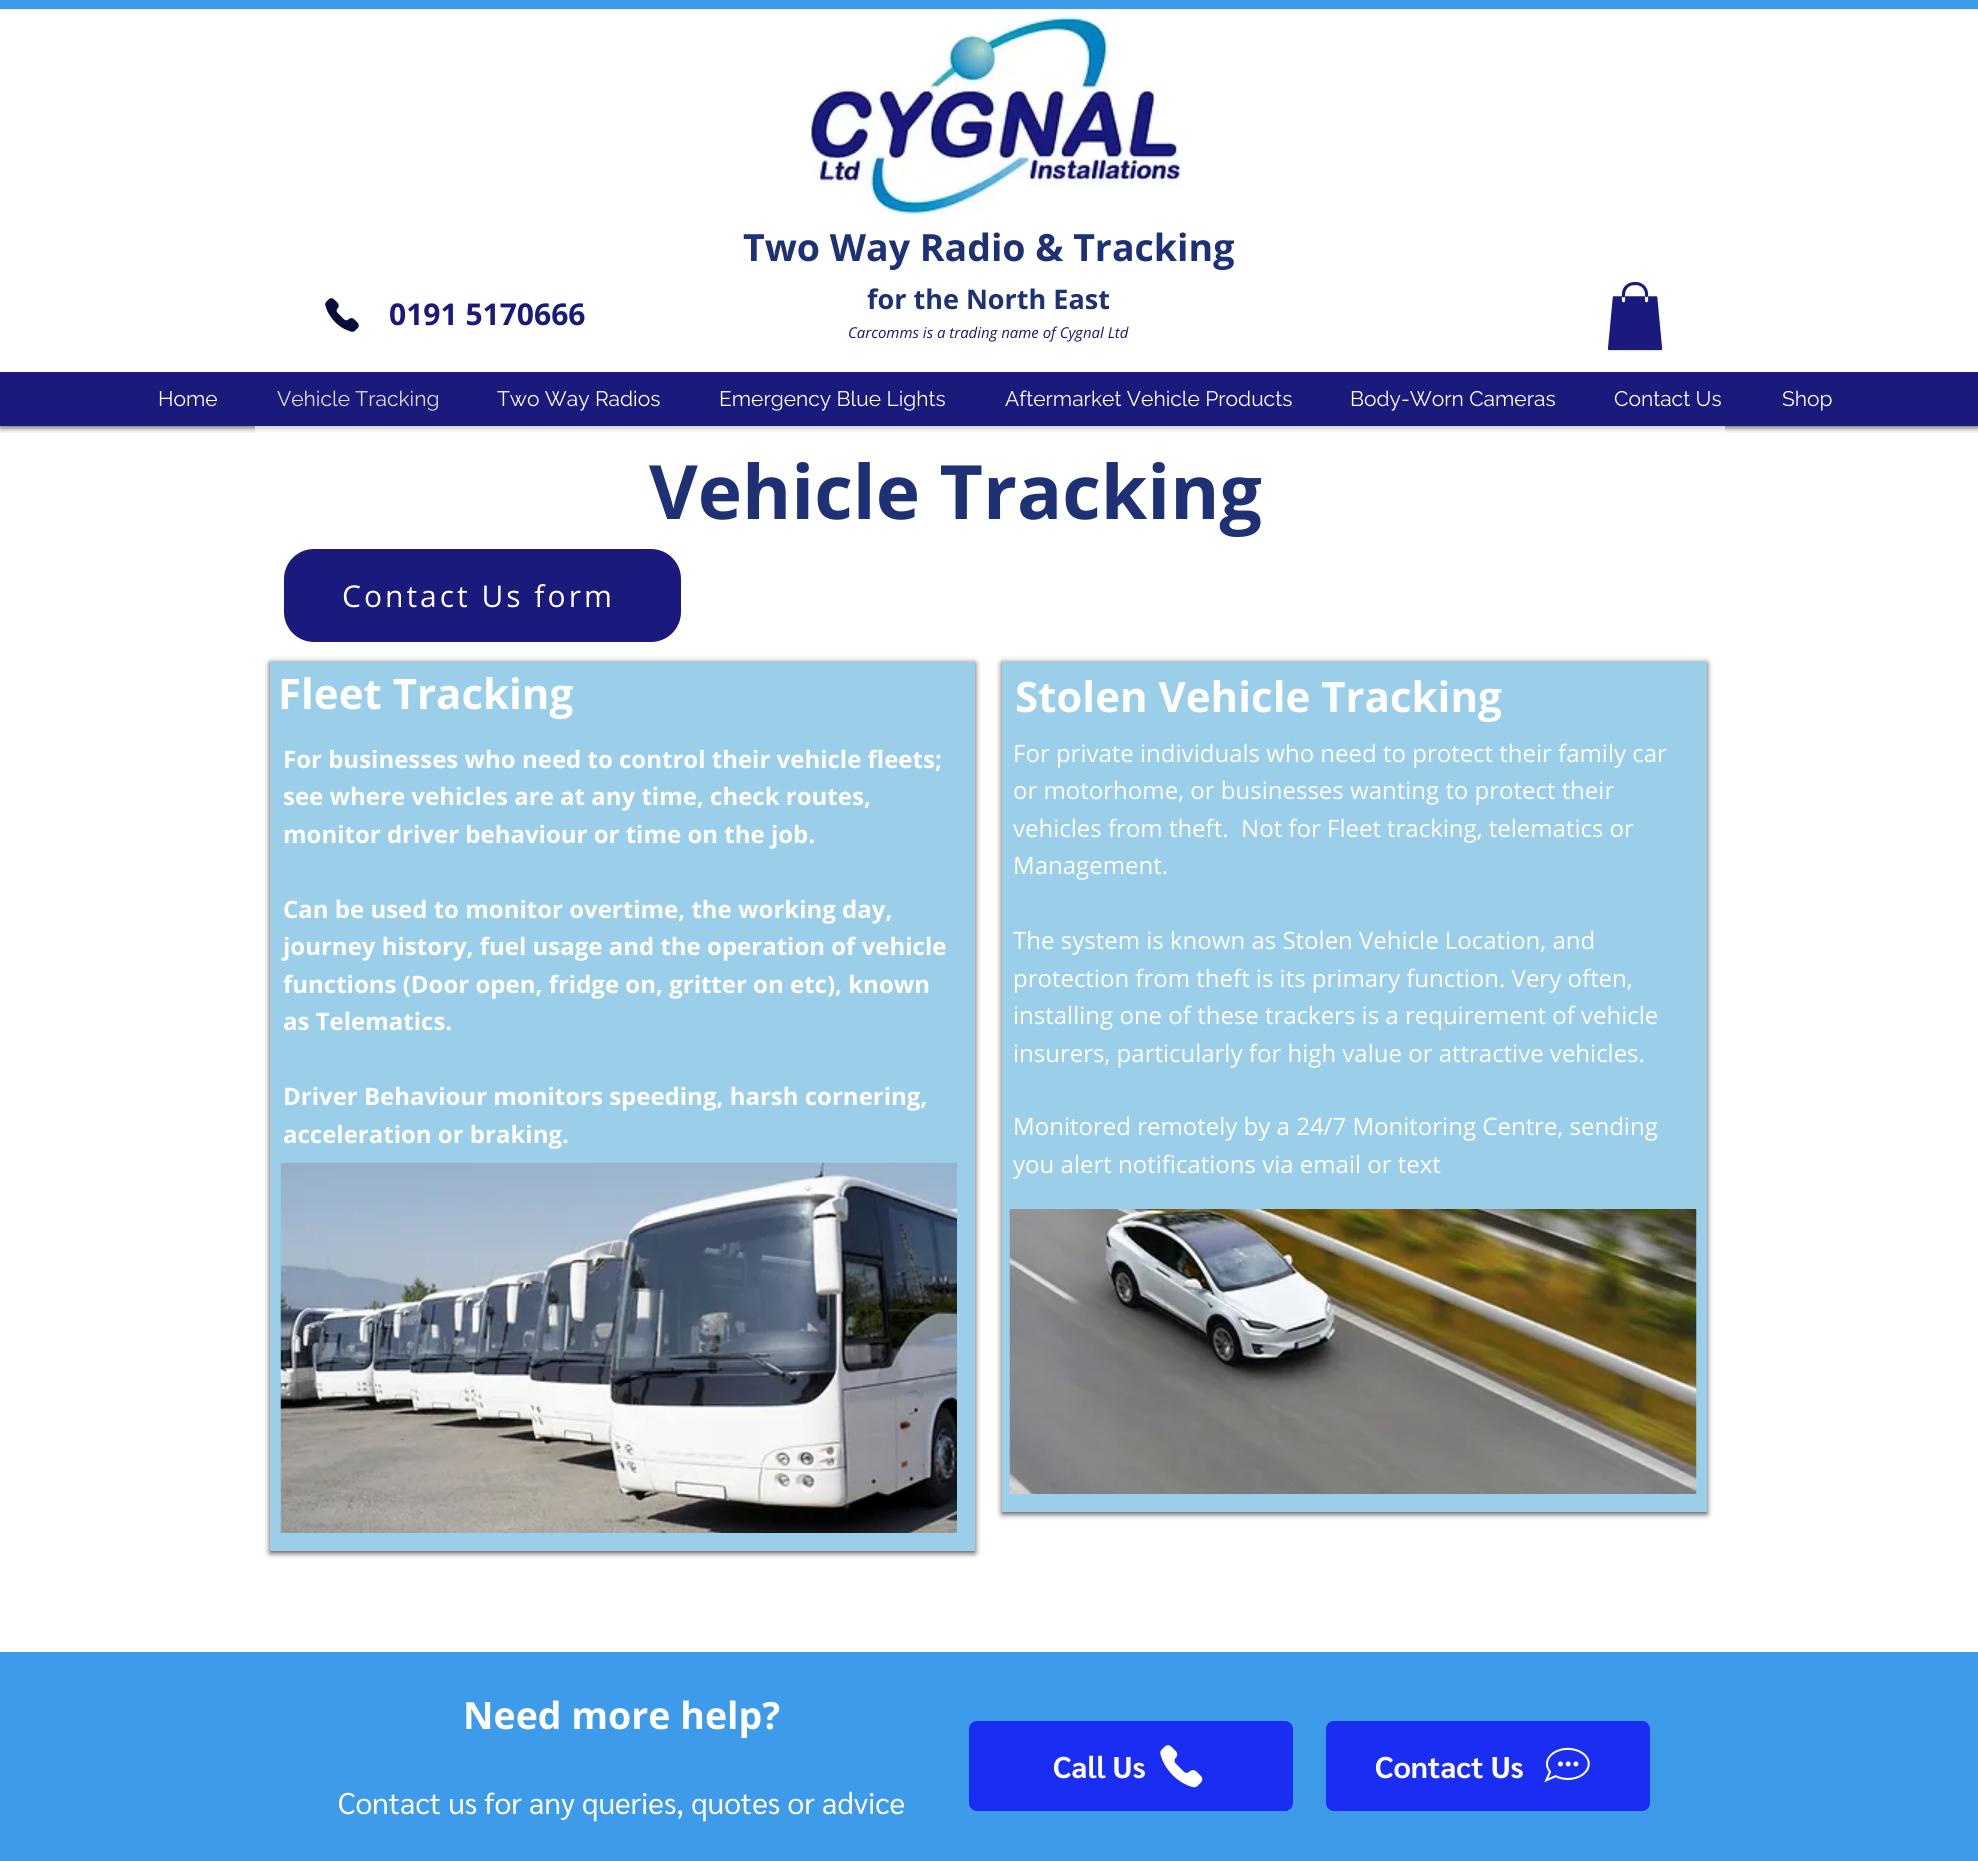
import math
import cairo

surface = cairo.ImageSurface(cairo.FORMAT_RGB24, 1978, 1861)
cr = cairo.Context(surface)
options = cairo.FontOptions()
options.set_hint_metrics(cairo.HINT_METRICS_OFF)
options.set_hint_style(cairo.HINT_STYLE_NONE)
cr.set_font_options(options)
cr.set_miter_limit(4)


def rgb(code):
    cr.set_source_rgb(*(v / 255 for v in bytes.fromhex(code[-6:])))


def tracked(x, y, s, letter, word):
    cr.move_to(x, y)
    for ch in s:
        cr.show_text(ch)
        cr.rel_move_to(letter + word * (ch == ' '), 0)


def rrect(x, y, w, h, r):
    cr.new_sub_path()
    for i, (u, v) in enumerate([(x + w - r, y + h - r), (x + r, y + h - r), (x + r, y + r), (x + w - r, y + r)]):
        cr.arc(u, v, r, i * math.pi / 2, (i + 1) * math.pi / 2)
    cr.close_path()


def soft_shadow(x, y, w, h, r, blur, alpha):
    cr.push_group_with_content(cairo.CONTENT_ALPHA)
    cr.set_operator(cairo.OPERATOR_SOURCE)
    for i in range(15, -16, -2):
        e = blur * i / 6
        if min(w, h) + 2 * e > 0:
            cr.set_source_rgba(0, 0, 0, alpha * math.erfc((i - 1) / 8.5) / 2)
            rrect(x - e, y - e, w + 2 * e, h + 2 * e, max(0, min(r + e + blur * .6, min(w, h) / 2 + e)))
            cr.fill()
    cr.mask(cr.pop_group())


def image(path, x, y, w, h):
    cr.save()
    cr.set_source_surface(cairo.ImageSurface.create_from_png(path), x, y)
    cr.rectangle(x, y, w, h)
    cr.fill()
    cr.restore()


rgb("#ffffff")
cr.paint()
cr.save()
cr.rectangle(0, 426, 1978, 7)
cr.clip()
rgb("#000000")
soft_shadow(0, -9, 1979, 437, 0, 3, 0.6)
cr.restore()
rgb("#3d9be9")
cr.rectangle(0, 0, 1978, 9)
cr.fill()
image("img/1.png", 810, 9, 372, 206)
image("img/2.png", 325, 298, 34, 34)
image("img/3.png", 1607, 282, 56, 69)
rgb("#1a197c")
cr.rectangle(0, 372, 1978, 54)
cr.fill()
cr.set_source_rgba(1, 1, 1, 0.6)
cr.rectangle(255, 426, 1470, 8)
cr.fill()
rgb("#1a197c")
rrect(284, 549, 397, 93, 30)
cr.fill()
rgb("#000000")
soft_shadow(270, 663, 705, 890, 0, 3, 0.7)
rgb("#9bcfe9")
cr.rectangle(270, 662, 705, 889)
cr.fill()
image("img/4.png", 280, 1162, 677, 371)
rgb("#000000")
soft_shadow(1002, 663, 705, 851, 0, 3, 0.7)
rgb("#9bcfe9")
cr.rectangle(1002, 662, 705, 850)
cr.fill()
image("img/5.png", 1009, 1209, 688, 285)
rgb("#3d9be9")
cr.rectangle(0, 1652, 1978, 209)
cr.fill()
rgb("#1a2df3")
rrect(969, 1721, 324, 90, 8)
cr.fill()
image("img/6.png", 1160, 1745, 43, 43)
rrect(1326, 1721, 324, 90, 8)
cr.fill()
image("img/7.png", 1544, 1747, 46, 36)
cr.select_font_face("Open Sans", cairo.FONT_SLANT_NORMAL, cairo.FONT_WEIGHT_BOLD)
cr.set_font_size(30)
rgb("#1a197c")
cr.move_to(389, 325)
cr.show_text("0191 5170666")
cr.set_font_size(37.5)
rgb("#1e3175")
cr.move_to(743, 261)
cr.show_text("Two Way Radio & Tracking")
cr.set_font_size(27)
cr.move_to(867, 309)
cr.show_text("for the North East")
cr.select_font_face("Open Sans", cairo.FONT_SLANT_ITALIC)
cr.set_font_size(15)
rgb("#1a197c")
cr.move_to(848, 338)
cr.show_text("Carcomms is a trading name of Cygnal Ltd")
cr.select_font_face("Raleway")
cr.set_font_size(21)
rgb("#ffffff")
cr.move_to(158, 406)
cr.show_text("Home")
rgb("#dfdfdf")
cr.move_to(277, 406)
cr.show_text("Vehicle Tracking")
rgb("#ffffff")
for x, y, s in [
    (497, 406, "Two Way Radios"),
    (719, 406, "Emergency Blue Lights"),
    (1005, 406, "Aftermarket Vehicle Products"),
    (1350, 406, "Body-Worn Cameras"),
    (1614, 406, "Contact Us"),
    (1782, 406, "Shop"),
]:
    cr.move_to(x, y)
    cr.show_text(s)
cr.select_font_face("Open Sans", cairo.FONT_SLANT_NORMAL, cairo.FONT_WEIGHT_BOLD)
cr.set_font_size(75)
rgb("#1e3175")
cr.move_to(649, 519)
cr.show_text("Vehicle Tracking")
cr.select_font_face("Open Sans")
cr.set_font_size(30)
rgb("#ffffff")
tracked(342, 607, "Contact Us form", 3, 0)
cr.select_font_face("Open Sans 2", cairo.FONT_SLANT_NORMAL, cairo.FONT_WEIGHT_BOLD)
cr.set_font_size(42)
cr.move_to(278, 709)
cr.show_text("Fleet Tracking")
cr.set_font_size(24)
for x, y, s in [
    (283, 768, "For businesses who need to control their vehicle fleets;"),
    (283, 805, "see where vehicles are at any time, check routes,"),
    (283, 843, "monitor driver behaviour or time on the job."),
    (283, 918, "Can be used to monitor overtime, the working day,"),
    (283, 955, "journey history, fuel usage and the operation of vehicle"),
    (283, 993, "functions (Door open, fridge on, gritter on etc), known"),
    (283, 1030, "as Telematics."),
    (283, 1105, "Driver Behaviour monitors speeding, harsh cornering,"),
    (283, 1143, "acceleration or braking."),
]:
    cr.move_to(x, y)
    cr.show_text(s)
cr.set_font_size(42)
cr.move_to(1015, 712)
cr.show_text("Stolen Vehicle Tracking")
cr.select_font_face("Open Sans")
cr.set_font_size(24)
for x, y, s in [
    (1013, 762, "For private individuals who need to protect their family car"),
    (1013, 799, "or motorhome, or businesses wanting to protect their"),
    (1013, 837, "vehicles from theft.  Not for Fleet tracking, telematics or"),
    (1013, 874, "Management."),
    (1013, 949, "The system is known as Stolen Vehicle Location, and"),
    (1013, 987, "protection from theft is its primary function. Very often,"),
    (1013, 1024, "installing one of these trackers is a requirement of vehicle"),
    (1013, 1062, "insurers, particularly for high value or attractive vehicles."),
    (1013, 1135, "Monitored remotely by a 24/7 Monitoring Centre, sending"),
    (1013, 1173, "you alert notifications via email or text"),
]:
    cr.move_to(x, y)
    cr.show_text(s)
cr.select_font_face("Open Sans", cairo.FONT_SLANT_NORMAL, cairo.FONT_WEIGHT_BOLD)
cr.set_font_size(37.5)
cr.move_to(463, 1729)
cr.show_text("Need more help?")
cr.select_font_face("Sarabun", cairo.FONT_SLANT_NORMAL, cairo.FONT_WEIGHT_BOLD)
cr.set_font_size(30)
cr.move_to(1053, 1778)
cr.show_text("Call Us")
cr.move_to(1375, 1778)
cr.show_text("Contact Us")
cr.select_font_face("Sarabun")
cr.move_to(338, 1814)
cr.show_text("Contact us for any queries, quotes or advice")
surface.write_to_png("page.png")
